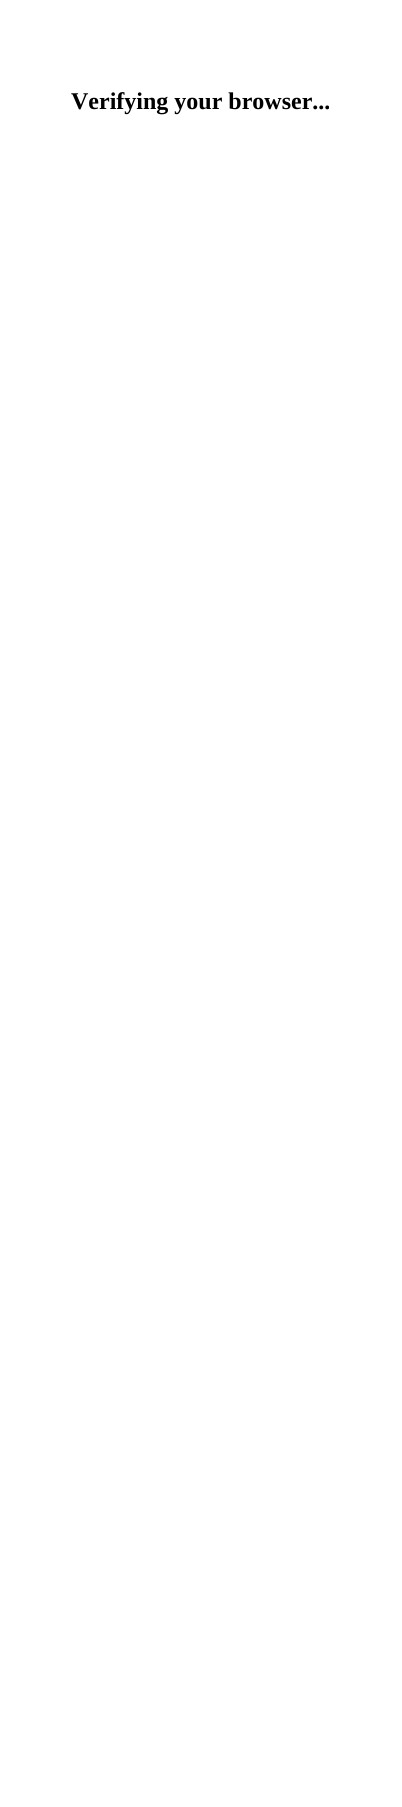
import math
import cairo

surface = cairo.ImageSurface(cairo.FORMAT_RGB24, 402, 1807)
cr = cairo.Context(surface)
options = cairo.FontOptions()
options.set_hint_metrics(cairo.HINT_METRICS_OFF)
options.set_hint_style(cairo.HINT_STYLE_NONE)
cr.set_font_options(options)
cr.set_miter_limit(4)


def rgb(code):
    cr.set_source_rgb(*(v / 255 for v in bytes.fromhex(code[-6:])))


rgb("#ffffff")
cr.paint()
cr.select_font_face("Liberation Serif", cairo.FONT_SLANT_NORMAL, cairo.FONT_WEIGHT_BOLD)
cr.set_font_size(24)
rgb("#000000")
cr.move_to(71, 109)
cr.show_text("Verifying your browser...")
surface.write_to_png("page.png")
